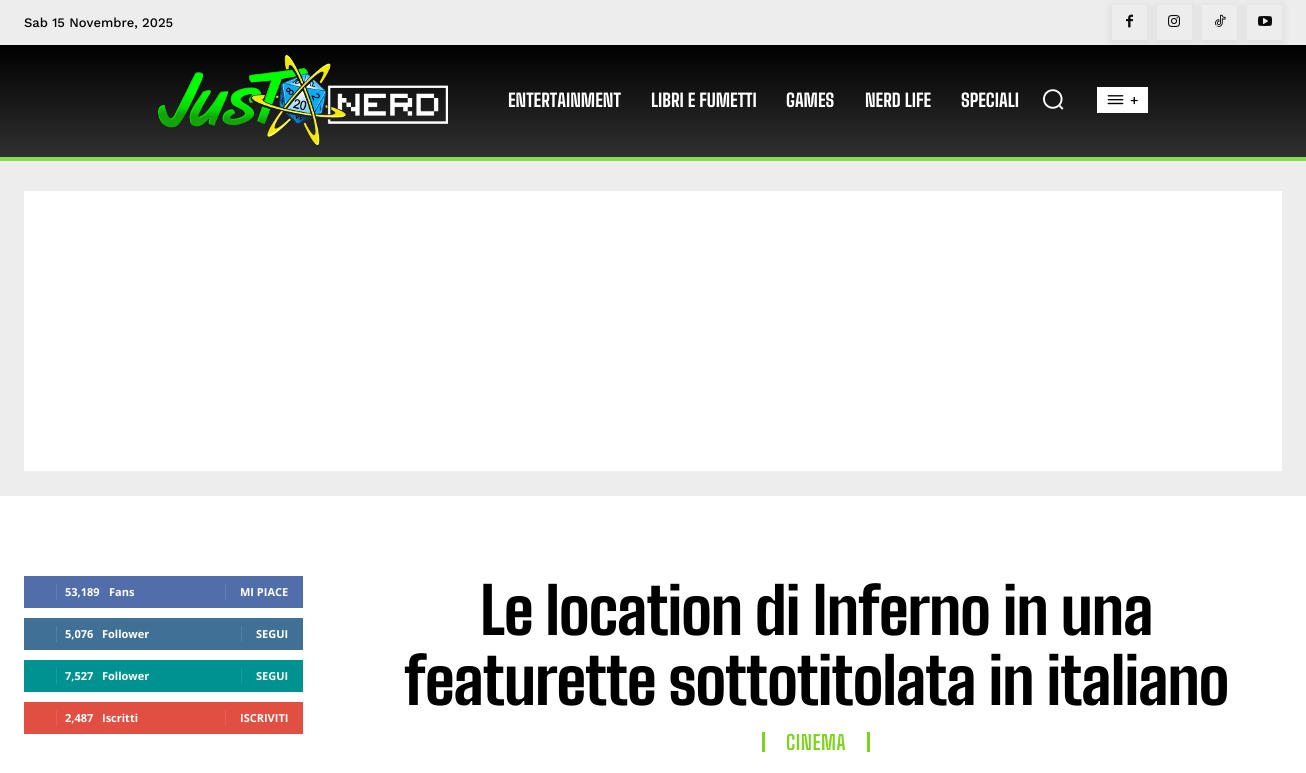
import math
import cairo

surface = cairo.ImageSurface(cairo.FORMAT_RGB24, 1306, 773)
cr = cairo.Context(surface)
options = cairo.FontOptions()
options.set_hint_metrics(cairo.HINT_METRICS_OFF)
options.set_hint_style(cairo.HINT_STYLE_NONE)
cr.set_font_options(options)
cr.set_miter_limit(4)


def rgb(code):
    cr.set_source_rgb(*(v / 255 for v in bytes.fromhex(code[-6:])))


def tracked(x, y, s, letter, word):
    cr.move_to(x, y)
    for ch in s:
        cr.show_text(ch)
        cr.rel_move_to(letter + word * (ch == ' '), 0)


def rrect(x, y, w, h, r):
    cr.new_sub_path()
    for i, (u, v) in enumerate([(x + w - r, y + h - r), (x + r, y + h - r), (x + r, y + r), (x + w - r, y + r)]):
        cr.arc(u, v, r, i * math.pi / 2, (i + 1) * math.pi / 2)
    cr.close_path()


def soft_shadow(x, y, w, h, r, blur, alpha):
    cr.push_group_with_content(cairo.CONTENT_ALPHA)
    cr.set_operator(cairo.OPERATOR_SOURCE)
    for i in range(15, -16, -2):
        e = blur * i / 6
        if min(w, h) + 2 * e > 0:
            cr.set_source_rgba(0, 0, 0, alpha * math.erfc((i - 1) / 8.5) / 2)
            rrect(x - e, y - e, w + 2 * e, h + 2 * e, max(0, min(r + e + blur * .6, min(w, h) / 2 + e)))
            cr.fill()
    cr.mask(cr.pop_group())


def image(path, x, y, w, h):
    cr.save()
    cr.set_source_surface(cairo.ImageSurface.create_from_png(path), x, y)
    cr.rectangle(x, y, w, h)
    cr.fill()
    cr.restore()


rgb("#ffffff")
cr.paint()
rgb("#87dd4b")
cr.rectangle(0, 157, 1306, 4)
cr.fill()
rgb("#ededed")
cr.rectangle(0, 0, 1306, 45)
cr.fill()
cr.save()
cr.set_fill_rule(cairo.FILL_RULE_EVEN_ODD)
cr.new_path()
cr.move_to(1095, 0)
cr.line_to(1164, 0)
cr.line_to(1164, 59)
cr.line_to(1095, 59)
cr.close_path()
cr.move_to(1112, 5)
cr.line_to(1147, 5)
cr.line_to(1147, 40)
cr.line_to(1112, 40)
cr.close_path()
cr.clip()
rgb("#000000")
soft_shadow(1111, 6, 37, 37, 0, 5, 0.08)
cr.restore()
image("img/1.png", 1126, 14, 7, 14)
cr.save()
cr.set_fill_rule(cairo.FILL_RULE_EVEN_ODD)
cr.new_path()
cr.move_to(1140, 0)
cr.line_to(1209, 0)
cr.line_to(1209, 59)
cr.line_to(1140, 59)
cr.close_path()
cr.move_to(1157, 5)
cr.line_to(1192, 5)
cr.line_to(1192, 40)
cr.line_to(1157, 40)
cr.close_path()
cr.clip()
rgb("#000000")
soft_shadow(1156, 6, 37, 37, 0, 5, 0.08)
cr.restore()
image("img/2.png", 1168, 15, 12, 12)
cr.save()
cr.set_fill_rule(cairo.FILL_RULE_EVEN_ODD)
cr.new_path()
cr.move_to(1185, 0)
cr.line_to(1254, 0)
cr.line_to(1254, 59)
cr.line_to(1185, 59)
cr.close_path()
cr.move_to(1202, 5)
cr.line_to(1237, 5)
cr.line_to(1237, 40)
cr.line_to(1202, 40)
cr.close_path()
cr.clip()
rgb("#000000")
soft_shadow(1201, 6, 37, 37, 0, 5, 0.08)
cr.restore()
image("img/3.png", 1215, 14, 11, 13)
cr.save()
cr.set_fill_rule(cairo.FILL_RULE_EVEN_ODD)
cr.new_path()
cr.move_to(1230, 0)
cr.line_to(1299, 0)
cr.line_to(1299, 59)
cr.line_to(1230, 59)
cr.close_path()
cr.move_to(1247, 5)
cr.line_to(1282, 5)
cr.line_to(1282, 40)
cr.line_to(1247, 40)
cr.close_path()
cr.clip()
rgb("#000000")
soft_shadow(1246, 6, 37, 37, 0, 5, 0.08)
cr.restore()
image("img/4.png", 1258, 16, 14, 10)
gradient = cairo.LinearGradient(653, 45, 653, 157)
gradient.add_color_stop_rgba(0, 0, 0, 0, 1)
gradient.add_color_stop_rgba(1, 0.188, 0.188, 0.188, 1)
cr.set_source(gradient)
cr.rectangle(0, 45, 1306, 112)
cr.fill()
image("img/5.png", 158, 55, 290, 90)
image("img/6.png", 1043, 89, 21, 21)
rgb("#ffffff")
cr.rectangle(1097, 87, 51, 26)
cr.fill()
image("img/7.png", 1107, 95, 17, 10)
for x, y, w, h, color in [
    (0, 161, 1306, 335, "#ededed"),
    (24, 191, 1258, 280, "#ffffff"),
    (24, 576, 279, 32, "#516eab"),
    (56, 584, 1, 16, "#627db3"),
    (225, 584, 1, 16, "#627db3"),
    (24, 618, 279, 32, "#417096"),
    (56, 626, 1, 16, "#547ea1"),
    (241, 626, 1, 16, "#547ea1"),
    (24, 660, 279, 32, "#009191"),
    (56, 668, 1, 16, "#1a9c9c"),
    (241, 668, 1, 16, "#1a9c9c"),
    (24, 702, 279, 32, "#e14e42"),
    (56, 710, 1, 16, "#e46055"),
    (225, 710, 1, 16, "#e46055"),
    (867, 732, 3, 20, "#7ed321"),
    (762, 732, 3, 20, "#7ed321"),
]:
    rgb(color)
    cr.rectangle(x, y, w, h)
    cr.fill()
cr.select_font_face("Work Sans Medium")
cr.set_font_size(13)
rgb("#000000")
cr.move_to(24, 27)
cr.show_text("Sab 15 Novembre, 2025")
cr.select_font_face("Big Shoulders Text ExtraBold")
cr.set_font_size(18)
rgb("#ffffff")
for x, y, s in [
    (508, 107, "ENTERTAINMENT"),
    (651, 107, "LIBRI E FUMETTI"),
    (786, 107, "GAMES"),
    (865, 107, "NERD LIFE"),
    (961, 107, "SPECIALI"),
]:
    cr.move_to(x, y)
    cr.show_text(s)
cr.select_font_face("Work Sans Medium")
cr.set_font_size(14)
rgb("#000000")
cr.move_to(1130, 105)
cr.show_text("+")
cr.select_font_face("Open Sans", cairo.FONT_SLANT_NORMAL, cairo.FONT_WEIGHT_BOLD)
cr.set_font_size(11)
rgb("#ffffff")
for x, y, s in [
    (65, 596, "53,189"),
    (109, 596, "Fans"),
    (240, 596, "MI PIACE"),
    (65, 638, "5,076"),
    (102, 638, "Follower"),
    (256, 638, "SEGUI"),
    (65, 680, "7,527"),
    (102, 680, "Follower"),
    (256, 680, "SEGUI"),
    (65, 722, "2,487"),
    (102, 722, "Iscritti"),
    (240, 722, "ISCRIVITI"),
]:
    cr.move_to(x, y)
    cr.show_text(s)
cr.select_font_face("Big Shoulders Text ExtraBold")
cr.set_font_size(64)
rgb("#000000")
tracked(480, 635, "Le location di Inferno in una", -1, 0)
tracked(404, 705, "featurette sottotitolata in italiano", -1, 0)
cr.select_font_face("Big Shoulders Text", cairo.FONT_SLANT_NORMAL, cairo.FONT_WEIGHT_BOLD)
cr.set_font_size(20)
rgb("#7ed321")
tracked(786, 750, "CINEMA", 0.5, 0)
surface.write_to_png("page.png")
